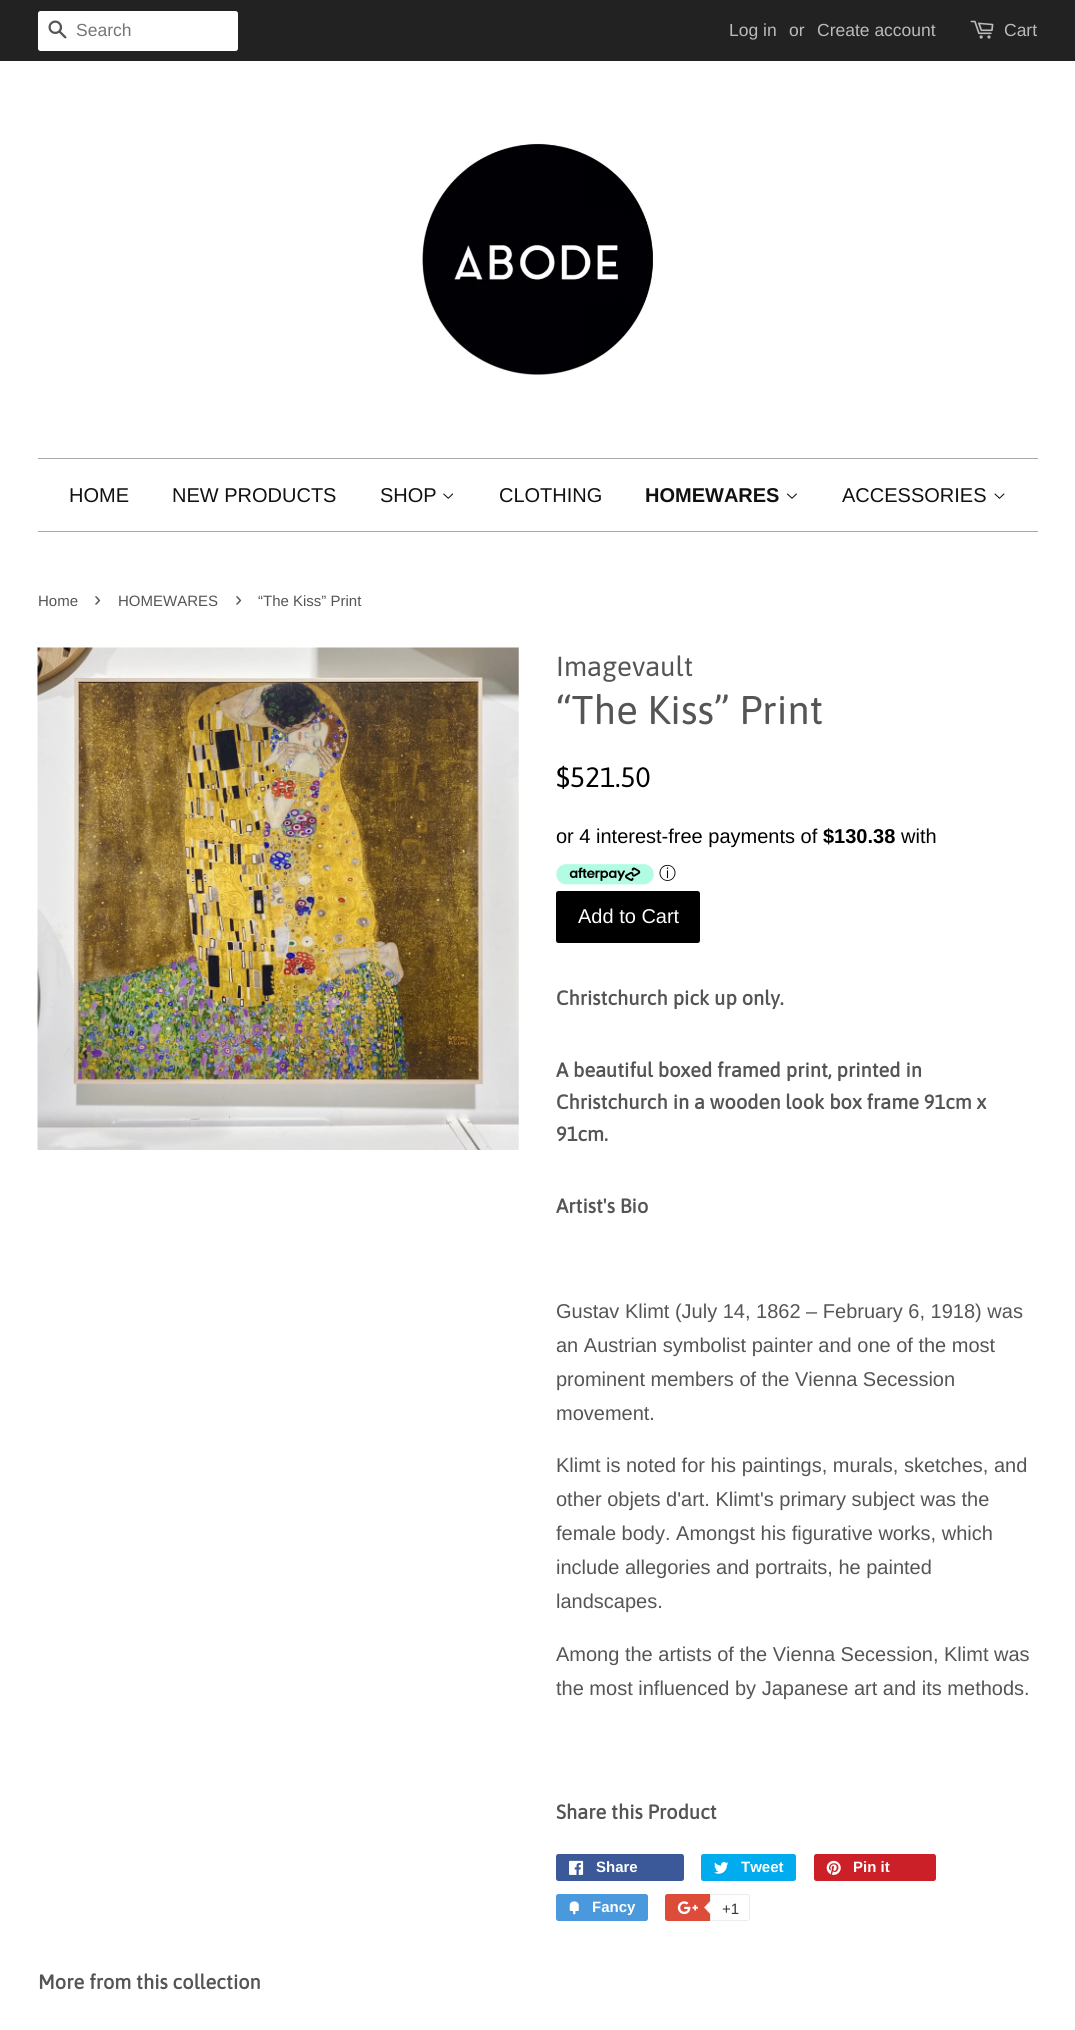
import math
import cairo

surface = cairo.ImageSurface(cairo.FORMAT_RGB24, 1075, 2030)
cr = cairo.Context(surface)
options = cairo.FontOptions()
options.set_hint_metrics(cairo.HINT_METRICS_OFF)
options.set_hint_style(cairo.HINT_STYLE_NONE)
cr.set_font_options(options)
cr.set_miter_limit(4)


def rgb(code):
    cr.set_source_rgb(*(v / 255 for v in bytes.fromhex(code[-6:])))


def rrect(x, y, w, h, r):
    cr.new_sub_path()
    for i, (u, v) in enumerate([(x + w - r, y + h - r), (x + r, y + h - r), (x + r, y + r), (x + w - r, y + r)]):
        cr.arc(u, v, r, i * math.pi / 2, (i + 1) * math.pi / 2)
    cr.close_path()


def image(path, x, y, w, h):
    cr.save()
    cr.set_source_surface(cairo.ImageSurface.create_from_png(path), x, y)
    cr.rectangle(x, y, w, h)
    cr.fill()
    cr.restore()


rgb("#ffffff")
cr.paint()
rgb("#222222")
cr.rectangle(0, 0, 1075, 61)
cr.fill()
rgb("#ffffff")
rrect(38, 11, 200, 40, 2.5)
cr.fill()
image("img/1.png", 48, 20, 19, 19)
image("img/2.png", 970, 20, 24, 19)
image("img/3.png", 422, 143, 233, 232)
rgb("#aaaaaa")
cr.rectangle(38, 458, 1000, 1)
cr.fill()
cr.rectangle(38, 531, 1000, 1)
cr.fill()
image("img/4.png", 443, 493, 11, 6)
image("img/5.png", 787, 493, 10, 6)
image("img/6.png", 994, 493, 11, 6)
image("img/7.png", 37, 647, 482, 503)
image("img/8.png", 556, 864, 98, 21)
rgb("#000000")
rrect(556, 891, 144, 52, 2.5)
cr.fill()
rgb("#3b5998")
rrect(556, 1854, 128, 27, 2.5)
cr.fill()
image("img/9.png", 569, 1860, 15, 15)
rgb("#00aced")
rrect(701, 1854, 95, 27, 2.5)
cr.fill()
image("img/10.png", 714, 1862, 15, 12)
rgb("#cb2027")
rrect(814, 1854, 122, 27, 2.5)
cr.fill()
image("img/11.png", 826, 1860, 15, 15)
rgb("#4999dc")
rrect(556, 1894, 92, 27, 2.5)
cr.fill()
image("img/12.png", 569, 1901, 10, 14)
rgb("#dd4b39")
rrect(665, 1894, 83, 27, 2.5)
cr.fill()
image("img/13.png", 677, 1901, 21, 14)
rgb("#ffffff")
cr.new_path()
cr.move_to(710.5, 1894.5)
cr.line_to(747.5, 1894.5)
cr.curve_to(748.5, 1894.5, 749.5, 1895.5, 749.5, 1896.5)
cr.line_to(749.5, 1918.5)
cr.curve_to(749.5, 1919.5, 748.5, 1920.5, 747.5, 1920.5)
cr.line_to(710.5, 1920.5)
cr.close_path()
cr.fill_preserve()
rgb("#ececec")
cr.set_line_width(1)
cr.stroke()
cr.new_path()
cr.move_to(711, 1900)
cr.line_to(711, 1915)
cr.line_to(704, 1907.5)
cr.close_path()
cr.fill()
rgb("#ffffff")
cr.new_path()
cr.move_to(712.5, 1900)
cr.line_to(712.5, 1915)
cr.line_to(705, 1907.5)
cr.close_path()
cr.fill()
cr.select_font_face("Liberation Sans")
cr.set_font_size(17.5)
rgb("#757575")
cr.move_to(76, 36)
cr.show_text("Search")
rgb("#bbbbbb")
for x, y, s in [
    (729, 36, "Log in"),
    (789, 36, "or"),
    (817, 36, "Create account"),
    (1004, 36, "Cart"),
]:
    cr.move_to(x, y)
    cr.show_text(s)
cr.set_font_size(20)
rgb("#111111")
for x, y, s in [
    (69, 502, "HOME"),
    (172, 502, "NEW PRODUCTS"),
    (380, 502, "SHOP"),
    (499, 502, "CLOTHING"),
]:
    cr.move_to(x, y)
    cr.show_text(s)
cr.select_font_face("Liberation Sans", cairo.FONT_SLANT_NORMAL, cairo.FONT_WEIGHT_BOLD)
cr.move_to(645, 502)
cr.show_text("HOMEWARES")
cr.select_font_face("Liberation Sans")
cr.move_to(842, 502)
cr.show_text("ACCESSORIES")
cr.set_font_size(15)
rgb("#555555")
cr.move_to(38, 606)
cr.show_text("Home")
cr.set_font_size(21)
cr.move_to(94, 606)
cr.show_text("›")
cr.set_font_size(15)
cr.move_to(118, 606)
cr.show_text("HOMEWARES")
cr.set_font_size(21)
cr.move_to(235, 606)
cr.show_text("›")
cr.set_font_size(15)
cr.move_to(258, 606)
cr.show_text("“The Kiss” Print")
cr.select_font_face("Asap")
cr.set_font_size(27.5)
cr.move_to(556, 676)
cr.show_text("Imagevault")
cr.set_font_size(40)
cr.move_to(556, 724)
cr.show_text("“The Kiss” Print")
cr.set_font_size(28)
rgb("#000000")
cr.move_to(556, 787)
cr.show_text("$521.50")
cr.select_font_face("Liberation Sans")
cr.set_font_size(20)
cr.move_to(556, 843)
cr.show_text("or 4 interest-free payments of")
cr.select_font_face("Liberation Sans", cairo.FONT_SLANT_NORMAL, cairo.FONT_WEIGHT_BOLD)
cr.move_to(823, 843)
cr.show_text("$130.38")
cr.select_font_face("Liberation Sans")
cr.move_to(901, 843)
cr.show_text("with")
cr.select_font_face("WenQuanYi Zen Hei Medium")
cr.set_font_size(17)
cr.move_to(659, 879)
cr.show_text("ⓘ")
cr.select_font_face("Liberation Sans")
cr.set_font_size(20)
rgb("#ffffff")
cr.move_to(578, 923)
cr.show_text("Add to Cart")
cr.select_font_face("Asap", cairo.FONT_SLANT_NORMAL, cairo.FONT_WEIGHT_BOLD)
rgb("#555555")
for x, y, s in [
    (556, 1005, "Christchurch pick up only."),
    (556, 1077, "A beautiful boxed framed print, printed in"),
    (556, 1109, "Christchurch in a wooden look box frame 91cm x"),
    (556, 1141, "91cm."),
    (556, 1213, "Artist's Bio"),
]:
    cr.move_to(x, y)
    cr.show_text(s)
cr.select_font_face("Liberation Sans")
for x, y, s in [
    (556, 1318, "Gustav Klimt (July 14, 1862 – February 6, 1918) was"),
    (556, 1352, "an Austrian symbolist painter and one of the most"),
    (556, 1386, "prominent members of the Vienna Secession"),
    (556, 1420, "movement."),
    (556, 1472, "Klimt is noted for his paintings, murals, sketches, and"),
    (556, 1506, "other objets d'art. Klimt's primary subject was the"),
    (556, 1540, "female body. Amongst his figurative works, which"),
    (556, 1574, "include allegories and portraits, he painted"),
    (556, 1608, "landscapes."),
    (556, 1661, "Among the artists of the Vienna Secession, Klimt was"),
    (556, 1695, "the most influenced by Japanese art and its methods."),
]:
    cr.move_to(x, y)
    cr.show_text(s)
cr.select_font_face("Asap", cairo.FONT_SLANT_NORMAL, cairo.FONT_WEIGHT_BOLD)
cr.move_to(556, 1819)
cr.show_text("Share this Product")
cr.select_font_face("Liberation Sans", cairo.FONT_SLANT_NORMAL, cairo.FONT_WEIGHT_BOLD)
cr.set_font_size(15)
rgb("#ffffff")
for x, y, s in [
    (596, 1872, "Share"),
    (741, 1872, "Tweet"),
    (853, 1872, "Pin it"),
    (592, 1912, "Fancy"),
]:
    cr.move_to(x, y)
    cr.show_text(s)
cr.select_font_face("Liberation Sans")
rgb("#333333")
cr.move_to(722, 1914)
cr.show_text("+1")
cr.select_font_face("Asap", cairo.FONT_SLANT_NORMAL, cairo.FONT_WEIGHT_BOLD)
cr.set_font_size(20)
rgb("#555555")
cr.move_to(38, 1989)
cr.show_text("More from this collection")
surface.write_to_png("page.png")
